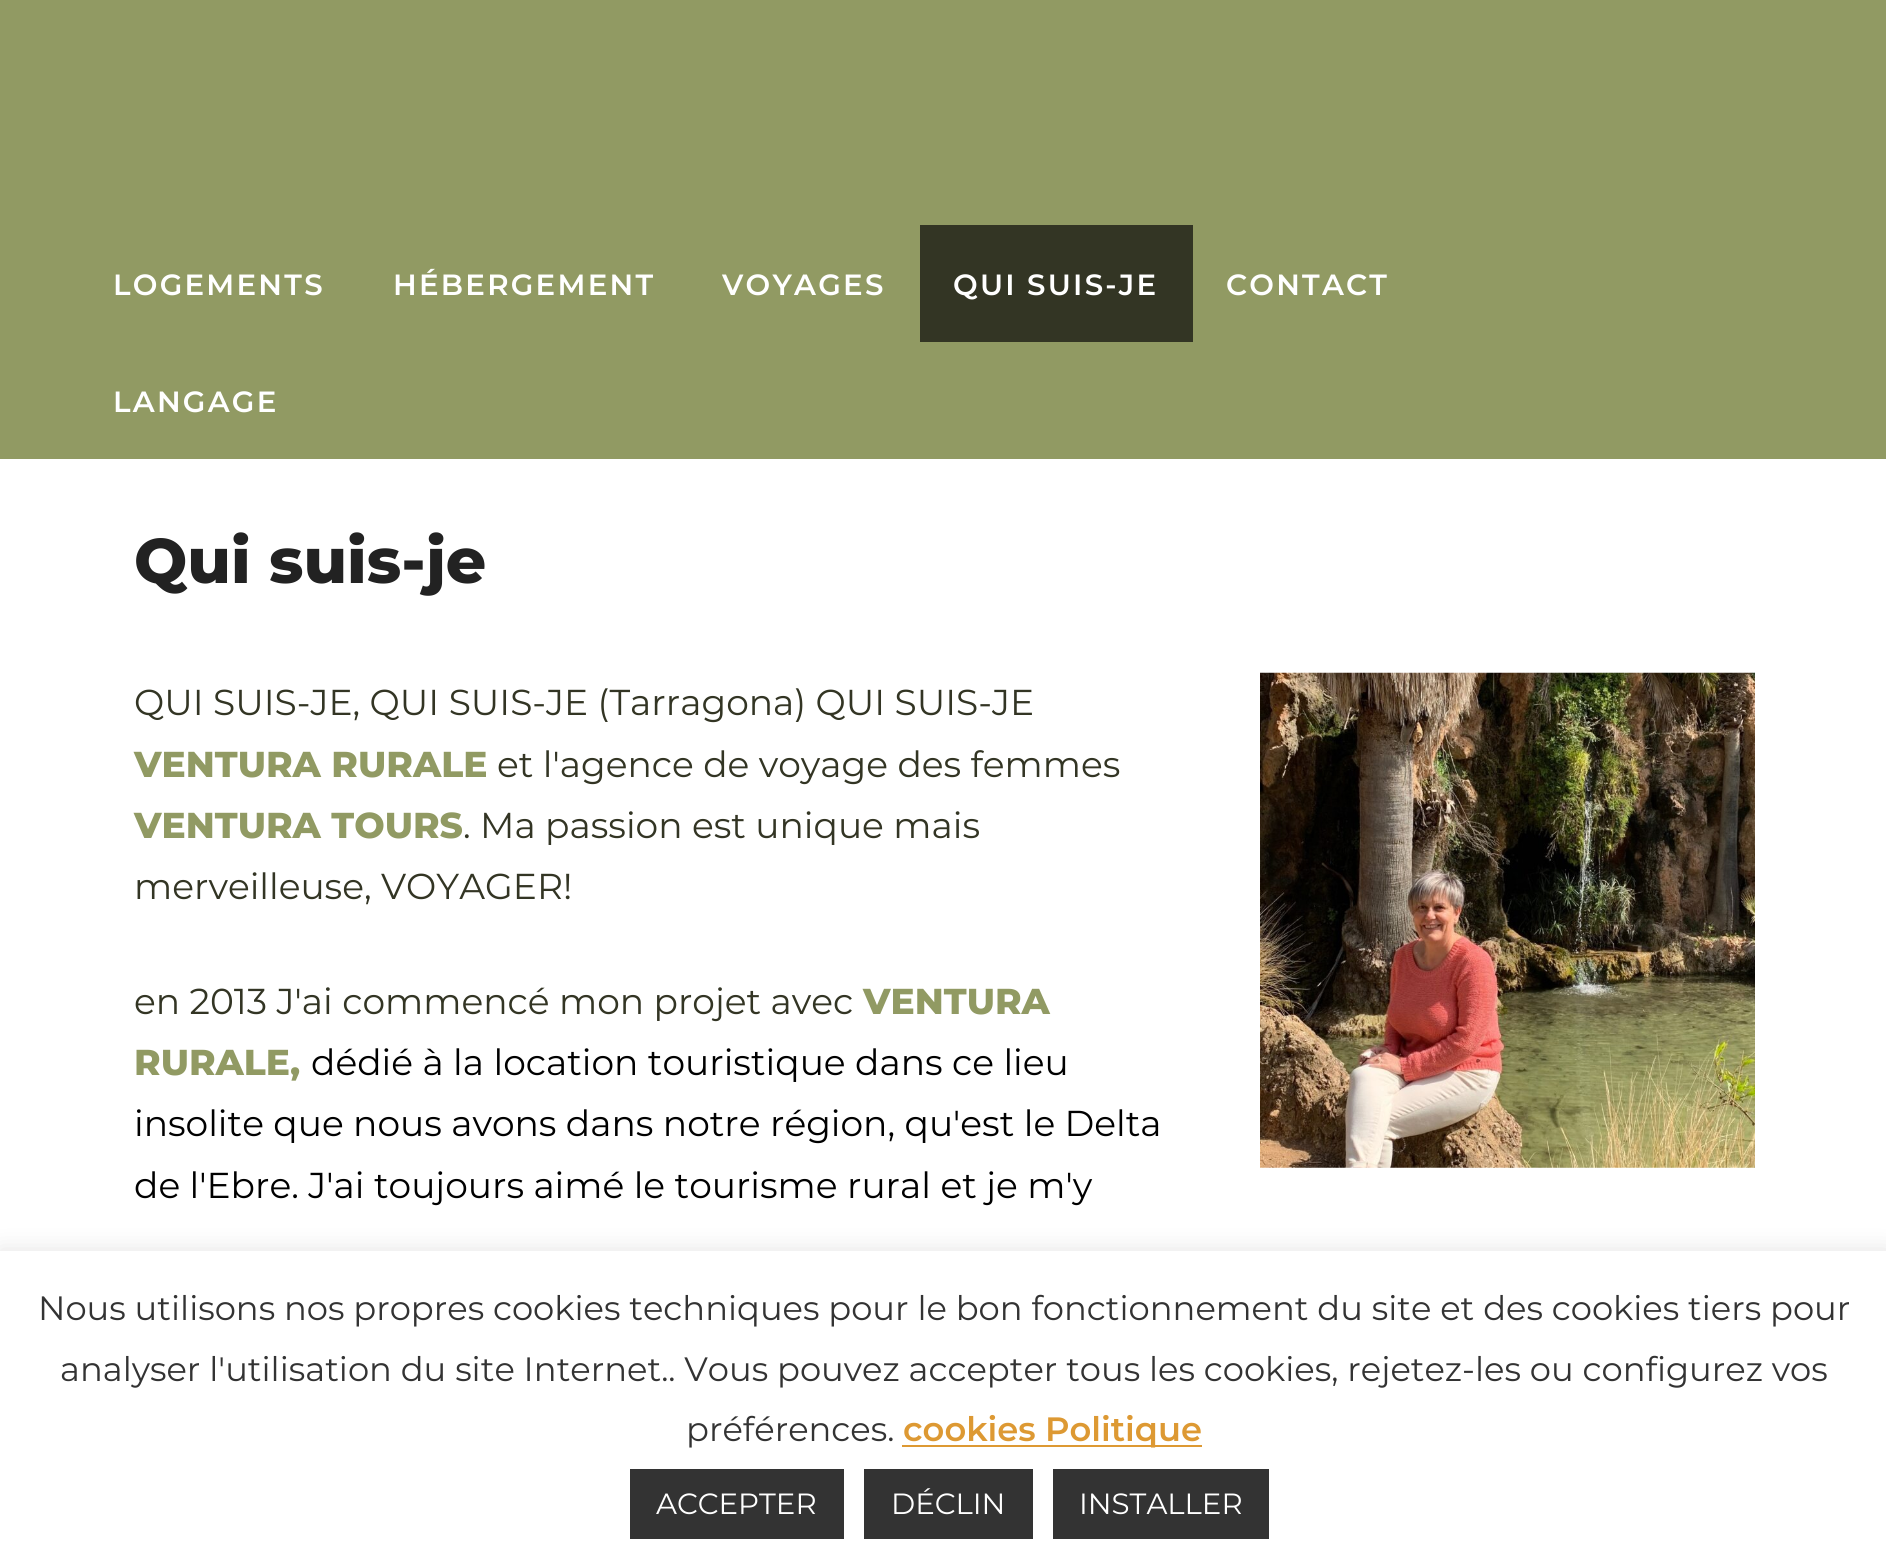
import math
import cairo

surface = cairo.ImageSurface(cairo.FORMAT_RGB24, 1886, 1565)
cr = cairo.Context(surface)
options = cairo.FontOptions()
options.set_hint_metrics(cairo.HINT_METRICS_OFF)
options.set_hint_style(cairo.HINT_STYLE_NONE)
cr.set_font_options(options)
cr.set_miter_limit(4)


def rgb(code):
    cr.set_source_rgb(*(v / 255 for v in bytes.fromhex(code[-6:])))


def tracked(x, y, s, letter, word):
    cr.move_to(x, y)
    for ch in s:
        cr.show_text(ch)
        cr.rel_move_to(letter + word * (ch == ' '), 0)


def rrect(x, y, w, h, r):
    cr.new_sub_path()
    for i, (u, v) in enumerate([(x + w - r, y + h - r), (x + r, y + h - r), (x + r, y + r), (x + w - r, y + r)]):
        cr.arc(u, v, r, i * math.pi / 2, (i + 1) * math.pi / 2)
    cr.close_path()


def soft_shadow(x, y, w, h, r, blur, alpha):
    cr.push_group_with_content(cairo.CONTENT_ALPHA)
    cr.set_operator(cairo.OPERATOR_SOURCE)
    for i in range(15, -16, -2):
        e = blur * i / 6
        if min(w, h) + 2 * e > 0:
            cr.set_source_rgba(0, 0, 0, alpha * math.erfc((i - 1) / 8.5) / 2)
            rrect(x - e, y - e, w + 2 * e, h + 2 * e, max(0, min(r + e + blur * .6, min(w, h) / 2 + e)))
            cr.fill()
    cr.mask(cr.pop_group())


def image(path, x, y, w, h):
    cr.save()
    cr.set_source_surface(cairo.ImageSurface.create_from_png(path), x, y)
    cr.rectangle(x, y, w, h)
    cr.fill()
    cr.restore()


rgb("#ffffff")
cr.paint()
rgb("#919a63")
cr.rectangle(0, 0, 1886, 459)
cr.fill()
rgb("#333524")
cr.rectangle(920, 225, 273, 117)
cr.fill()
image("img/1.png", 1260, 672, 495, 496)
rgb("#acabab")
soft_shadow(0, 1249, 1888, 315, 0, 11, 0.3)
for x, y, w, h, color in [
    (0, 1251, 1886, 314, "#ffffff"),
    (902, 1445, 300, 2, "#dd9933"),
    (630, 1469, 214, 70, "#333333"),
    (864, 1469, 169, 70, "#333333"),
    (1053, 1469, 216, 70, "#333333"),
]:
    rgb(color)
    cr.rectangle(x, y, w, h)
    cr.fill()
cr.select_font_face("Montserrat SemiBold")
cr.set_font_size(29.25)
rgb("#ffffff")
for x, y, s in [
    (113, 295, "LOGEMENTS"),
    (393, 295, "HÉBERGEMENT"),
    (722, 295, "VOYAGES"),
    (953, 295, "QUI SUIS-JE"),
    (1226, 295, "CONTACT"),
    (113, 412, "LANGAGE"),
]:
    tracked(x, y, s, 2.25, 0)
cr.select_font_face("Montserrat ExtraBold")
cr.set_font_size(63)
rgb("#222222")
cr.move_to(134, 583)
cr.show_text("Qui suis-je")
cr.select_font_face("Montserrat")
cr.set_font_size(36)
rgb("#333524")
cr.move_to(134, 715)
cr.show_text("QUI SUIS-JE, QUI SUIS-JE (Tarragona) QUI SUIS-JE")
cr.select_font_face("Montserrat ExtraBold")
rgb("#919a63")
cr.move_to(134, 777)
cr.show_text("VENTURA RURALE")
cr.select_font_face("Montserrat")
rgb("#333524")
cr.move_to(497, 777)
cr.show_text("et l'agence de voyage des femmes")
cr.select_font_face("Montserrat ExtraBold")
rgb("#919a63")
cr.move_to(134, 838)
cr.show_text("VENTURA TOURS")
cr.select_font_face("Montserrat")
rgb("#333524")
for x, y, s in [
    (463, 838, ". Ma passion est unique mais"),
    (134, 899, "merveilleuse, VOYAGER!"),
    (134, 1014, "en 2013 J'ai commencé mon projet avec"),
]:
    cr.move_to(x, y)
    cr.show_text(s)
cr.select_font_face("Montserrat ExtraBold")
rgb("#919a63")
cr.move_to(863, 1014)
cr.show_text("VENTURA")
cr.move_to(134, 1075)
cr.show_text("RURALE,")
cr.select_font_face("Montserrat")
rgb("#000000")
for x, y, s in [
    (311, 1075, "dédié à la location touristique dans ce lieu"),
    (134, 1136, "insolite que nous avons dans notre région, qu'est le Delta"),
    (134, 1198, "de l'Ebre. J'ai toujours aimé le tourisme rural et je m'y"),
]:
    cr.move_to(x, y)
    cr.show_text(s)
cr.set_font_size(33.75)
rgb("#333333")
for x, y, s in [
    (38, 1320, "Nous utilisons nos propres cookies techniques pour le bon fonctionnement du site et des cookies tiers pour"),
    (60, 1381, "analyser l'utilisation du site Internet.. Vous pouvez accepter tous les cookies, rejetez-les ou configurez vos"),
    (686, 1441, "préférences."),
]:
    cr.move_to(x, y)
    cr.show_text(s)
cr.select_font_face("Montserrat SemiBold")
rgb("#dd9933")
cr.move_to(903, 1441)
cr.show_text("cookies Politique")
cr.select_font_face("Montserrat")
cr.set_font_size(29.25)
rgb("#ffffff")
for x, y, s in [
    (656, 1514, "ACCEPTER"),
    (891, 1514, "DÉCLIN"),
    (1079, 1514, "INSTALLER"),
]:
    cr.move_to(x, y)
    cr.show_text(s)
surface.write_to_png("page.png")
